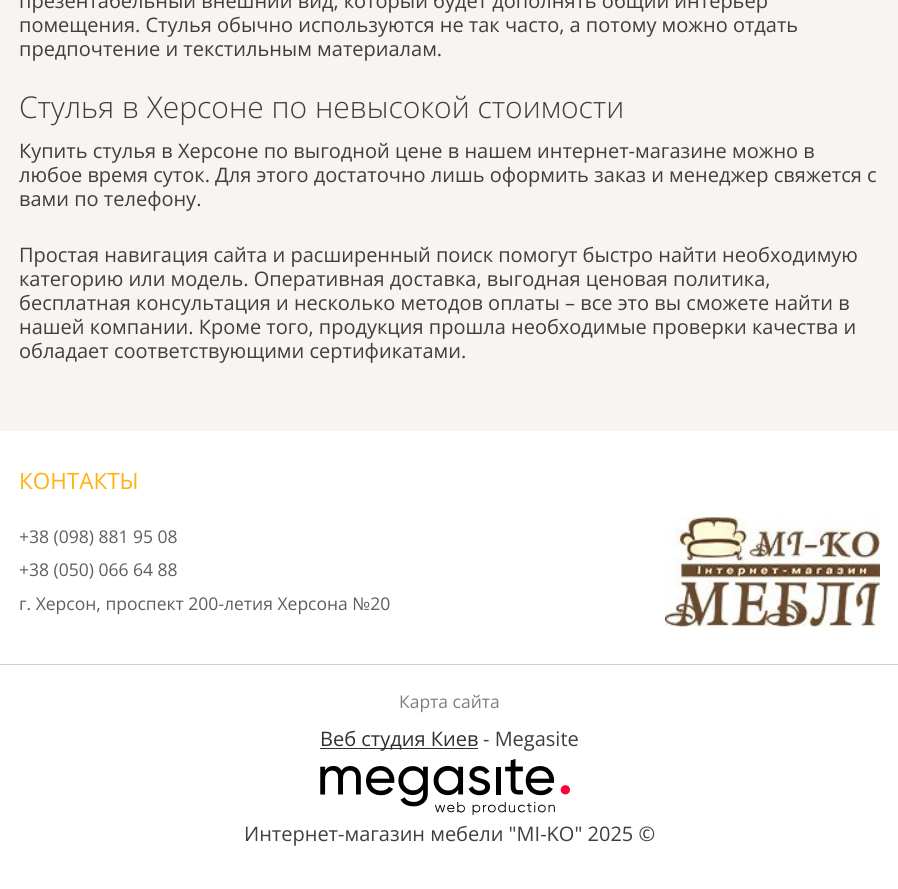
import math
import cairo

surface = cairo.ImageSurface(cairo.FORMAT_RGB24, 898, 889)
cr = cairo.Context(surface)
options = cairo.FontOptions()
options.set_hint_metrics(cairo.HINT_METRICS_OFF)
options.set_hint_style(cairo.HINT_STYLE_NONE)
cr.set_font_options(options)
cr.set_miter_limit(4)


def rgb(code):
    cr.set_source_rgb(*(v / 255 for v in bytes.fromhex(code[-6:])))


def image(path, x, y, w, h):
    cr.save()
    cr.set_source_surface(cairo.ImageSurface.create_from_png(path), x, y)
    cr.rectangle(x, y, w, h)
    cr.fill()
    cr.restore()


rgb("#f7f4f2")
cr.paint()
rgb("#ffffff")
cr.rectangle(0, 431, 898, 458)
cr.fill()
rgb("#d2d2d2")
cr.rectangle(0, 664, 898, 1)
cr.fill()
image("img/1.png", 665, 517, 215, 110)
rgb("#33302e")
cr.rectangle(320, 748, 158, 1)
cr.fill()
image("img/2.png", 320, 759, 250, 56)
cr.select_font_face("Open Sans")
cr.set_font_size(20)
rgb("#413e3c")
for x, y, s in [
    (19, 8, "презентабельный внешний вид, который будет дополнять общий интерьер"),
    (19, 32, "помещения. Стулья обычно используются не так часто, а потому можно отдать"),
    (19, 56, "предпочтение и текстильным материалам."),
]:
    cr.move_to(x, y)
    cr.show_text(s)
cr.select_font_face("Open Sans Light")
cr.set_font_size(30)
cr.move_to(19, 118)
cr.show_text("Стулья в Херсоне по невысокой стоимости")
cr.select_font_face("Open Sans")
cr.set_font_size(20)
for x, y, s in [
    (19, 158, "Купить стулья в Херсоне по выгодной цене в нашем интернет-магазине можно в"),
    (19, 182, "любое время суток. Для этого достаточно лишь оформить заказ и менеджер свяжется с"),
    (19, 206, "вами по телефону."),
    (19, 262, "Простая навигация сайта и расширенный поиск помогут быстро найти необходимую"),
    (19, 286, "категорию или модель. Оперативная доставка, выгодная ценовая политика,"),
    (19, 310, "бесплатная консультация и несколько методов оплаты – все это вы сможете найти в"),
    (19, 334, "нашей компании. Кроме того, продукция прошла необходимые проверки качества и"),
    (19, 358, "обладает соответствующими сертификатами."),
]:
    cr.move_to(x, y)
    cr.show_text(s)
cr.set_font_size(22.5)
rgb("#ffb212")
cr.move_to(19, 489)
cr.show_text("КОНТАКТЫ")
cr.set_font_size(17.5)
rgb("#5d5e61")
for x, y, s in [
    (19, 543, "+38 (098) 881 95 08"),
    (19, 576, "+38 (050) 066 64 88"),
    (19, 610, "г. Херсон, проспект 200-летия Херсона №20"),
]:
    cr.move_to(x, y)
    cr.show_text(s)
rgb("#827d7b")
cr.move_to(399, 708)
cr.show_text("Карта сайта")
cr.set_font_size(20)
rgb("#33302e")
cr.move_to(320, 746)
cr.show_text("Веб студия Киев")
rgb("#413e3c")
cr.move_to(483, 746)
cr.show_text("- Megasite")
cr.move_to(244, 841)
cr.show_text("Интернет-магазин мебели \"МI-KO\" 2025 ©")
surface.write_to_png("page.png")
